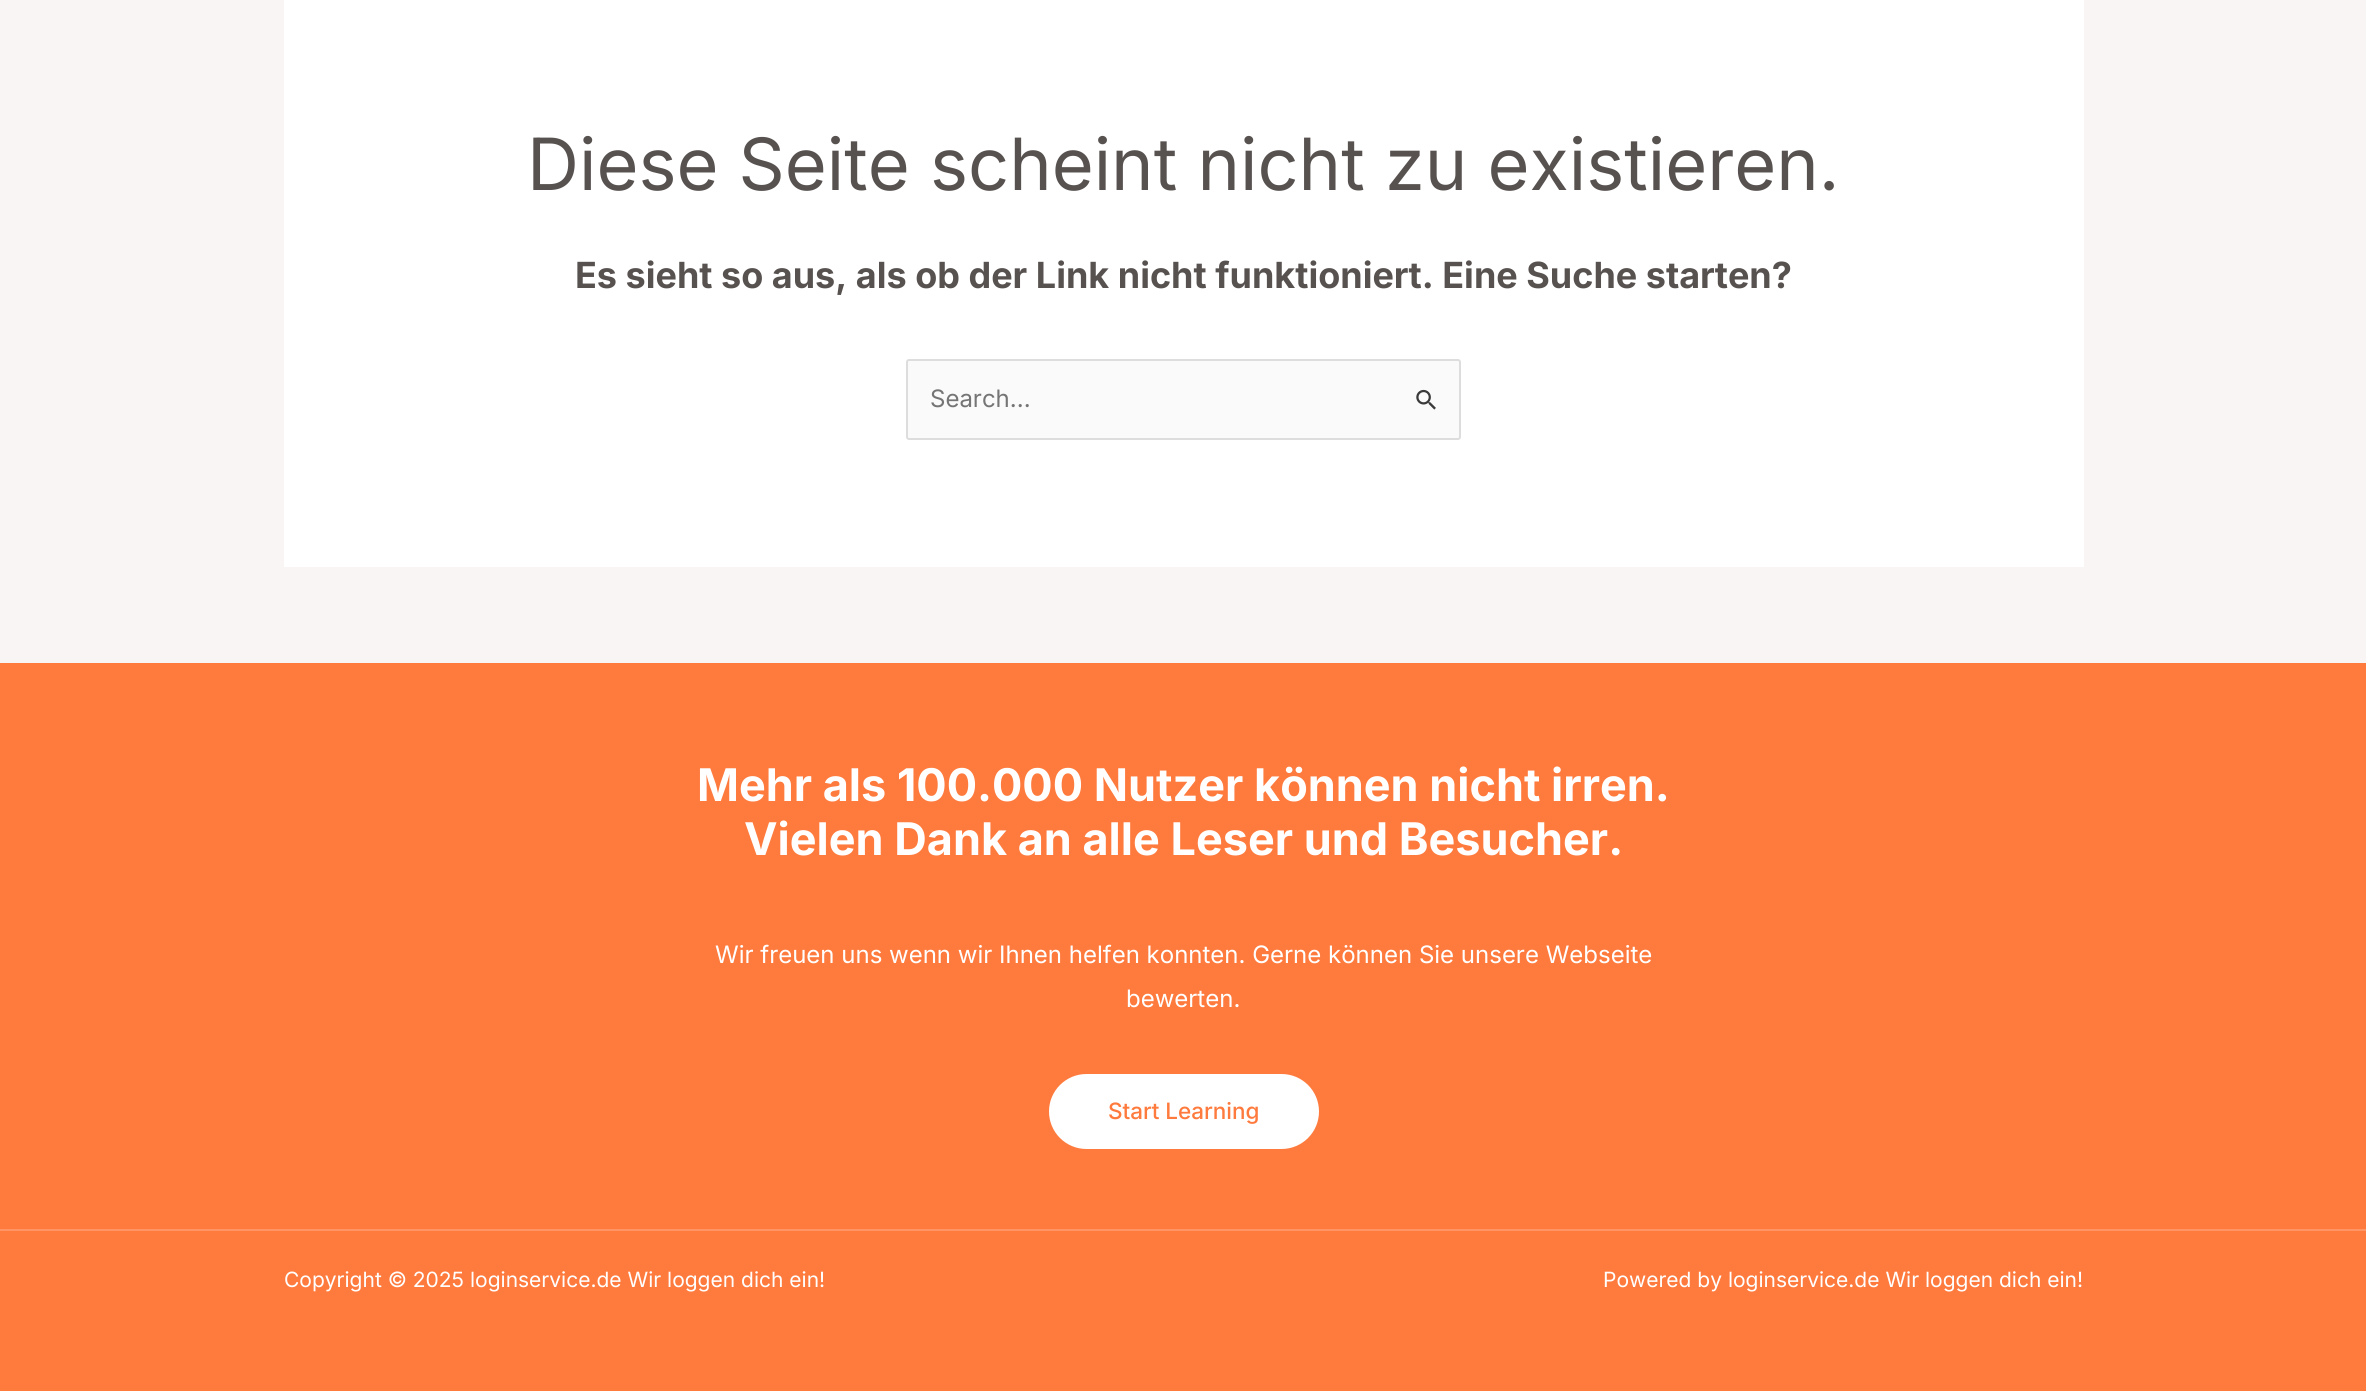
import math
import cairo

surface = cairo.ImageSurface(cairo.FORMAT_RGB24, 2366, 1391)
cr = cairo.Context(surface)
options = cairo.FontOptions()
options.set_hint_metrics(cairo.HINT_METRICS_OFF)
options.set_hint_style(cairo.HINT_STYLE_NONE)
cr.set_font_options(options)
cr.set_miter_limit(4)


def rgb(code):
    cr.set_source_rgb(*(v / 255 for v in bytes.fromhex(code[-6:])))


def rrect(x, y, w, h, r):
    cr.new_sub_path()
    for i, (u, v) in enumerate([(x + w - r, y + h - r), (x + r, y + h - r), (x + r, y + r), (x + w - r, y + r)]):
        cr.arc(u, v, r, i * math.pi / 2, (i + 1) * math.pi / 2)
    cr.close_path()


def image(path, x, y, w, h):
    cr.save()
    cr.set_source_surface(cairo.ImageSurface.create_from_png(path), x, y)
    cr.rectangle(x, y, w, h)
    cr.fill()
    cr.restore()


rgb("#f8f5f4")
cr.paint()
rgb("#ffffff")
cr.rectangle(284, 0, 1800, 567)
cr.fill()
rgb("#fafafa")
rrect(907, 360, 553, 79, 2)
cr.fill_preserve()
rgb("#dddddd")
cr.stroke()
image("img/1.png", 1416, 389, 20, 21)
rgb("#ff7a3d")
cr.rectangle(0, 663, 2366, 728)
cr.fill()
rgb("#ffffff")
rrect(1049, 1074, 270, 75, 37.5)
cr.fill()
rgb("#ff9564")
cr.rectangle(0, 1229, 2366, 2)
cr.fill()
cr.select_font_face("Inter")
cr.set_font_size(72)
rgb("#575250")
cr.move_to(527, 190)
cr.show_text("Diese Seite scheint nicht zu existieren.")
cr.select_font_face("Inter", cairo.FONT_SLANT_NORMAL, cairo.FONT_WEIGHT_BOLD)
cr.set_font_size(36)
cr.move_to(575, 288)
cr.show_text("Es sieht so aus, als ob der Link nicht funktioniert. Eine Suche starten?")
cr.select_font_face("Inter")
cr.set_font_size(24)
rgb("#757575")
cr.move_to(930, 407)
cr.show_text("Search...")
cr.select_font_face("Inter", cairo.FONT_SLANT_NORMAL, cairo.FONT_WEIGHT_BOLD)
cr.set_font_size(45)
rgb("#ffffff")
cr.move_to(697, 801)
cr.show_text("Mehr als 100.000 Nutzer können nicht irren.")
cr.move_to(744, 855)
cr.show_text("Vielen Dank an alle Leser und Besucher.")
cr.select_font_face("Inter")
cr.set_font_size(24)
cr.move_to(715, 963)
cr.show_text("Wir freuen uns wenn wir Ihnen helfen konnten. Gerne können Sie unsere Webseite")
cr.move_to(1126, 1007)
cr.show_text("bewerten.")
cr.select_font_face("Inter Medium")
cr.set_font_size(22.5)
rgb("#ff7a3d")
cr.move_to(1108, 1119)
cr.show_text("Start Learning")
cr.select_font_face("Inter")
cr.set_font_size(21)
rgb("#ffffff")
cr.move_to(284, 1287)
cr.show_text("Copyright © 2025 loginservice.de Wir loggen dich ein!")
cr.move_to(1603, 1287)
cr.show_text("Powered by loginservice.de Wir loggen dich ein!")
surface.write_to_png("page.png")
